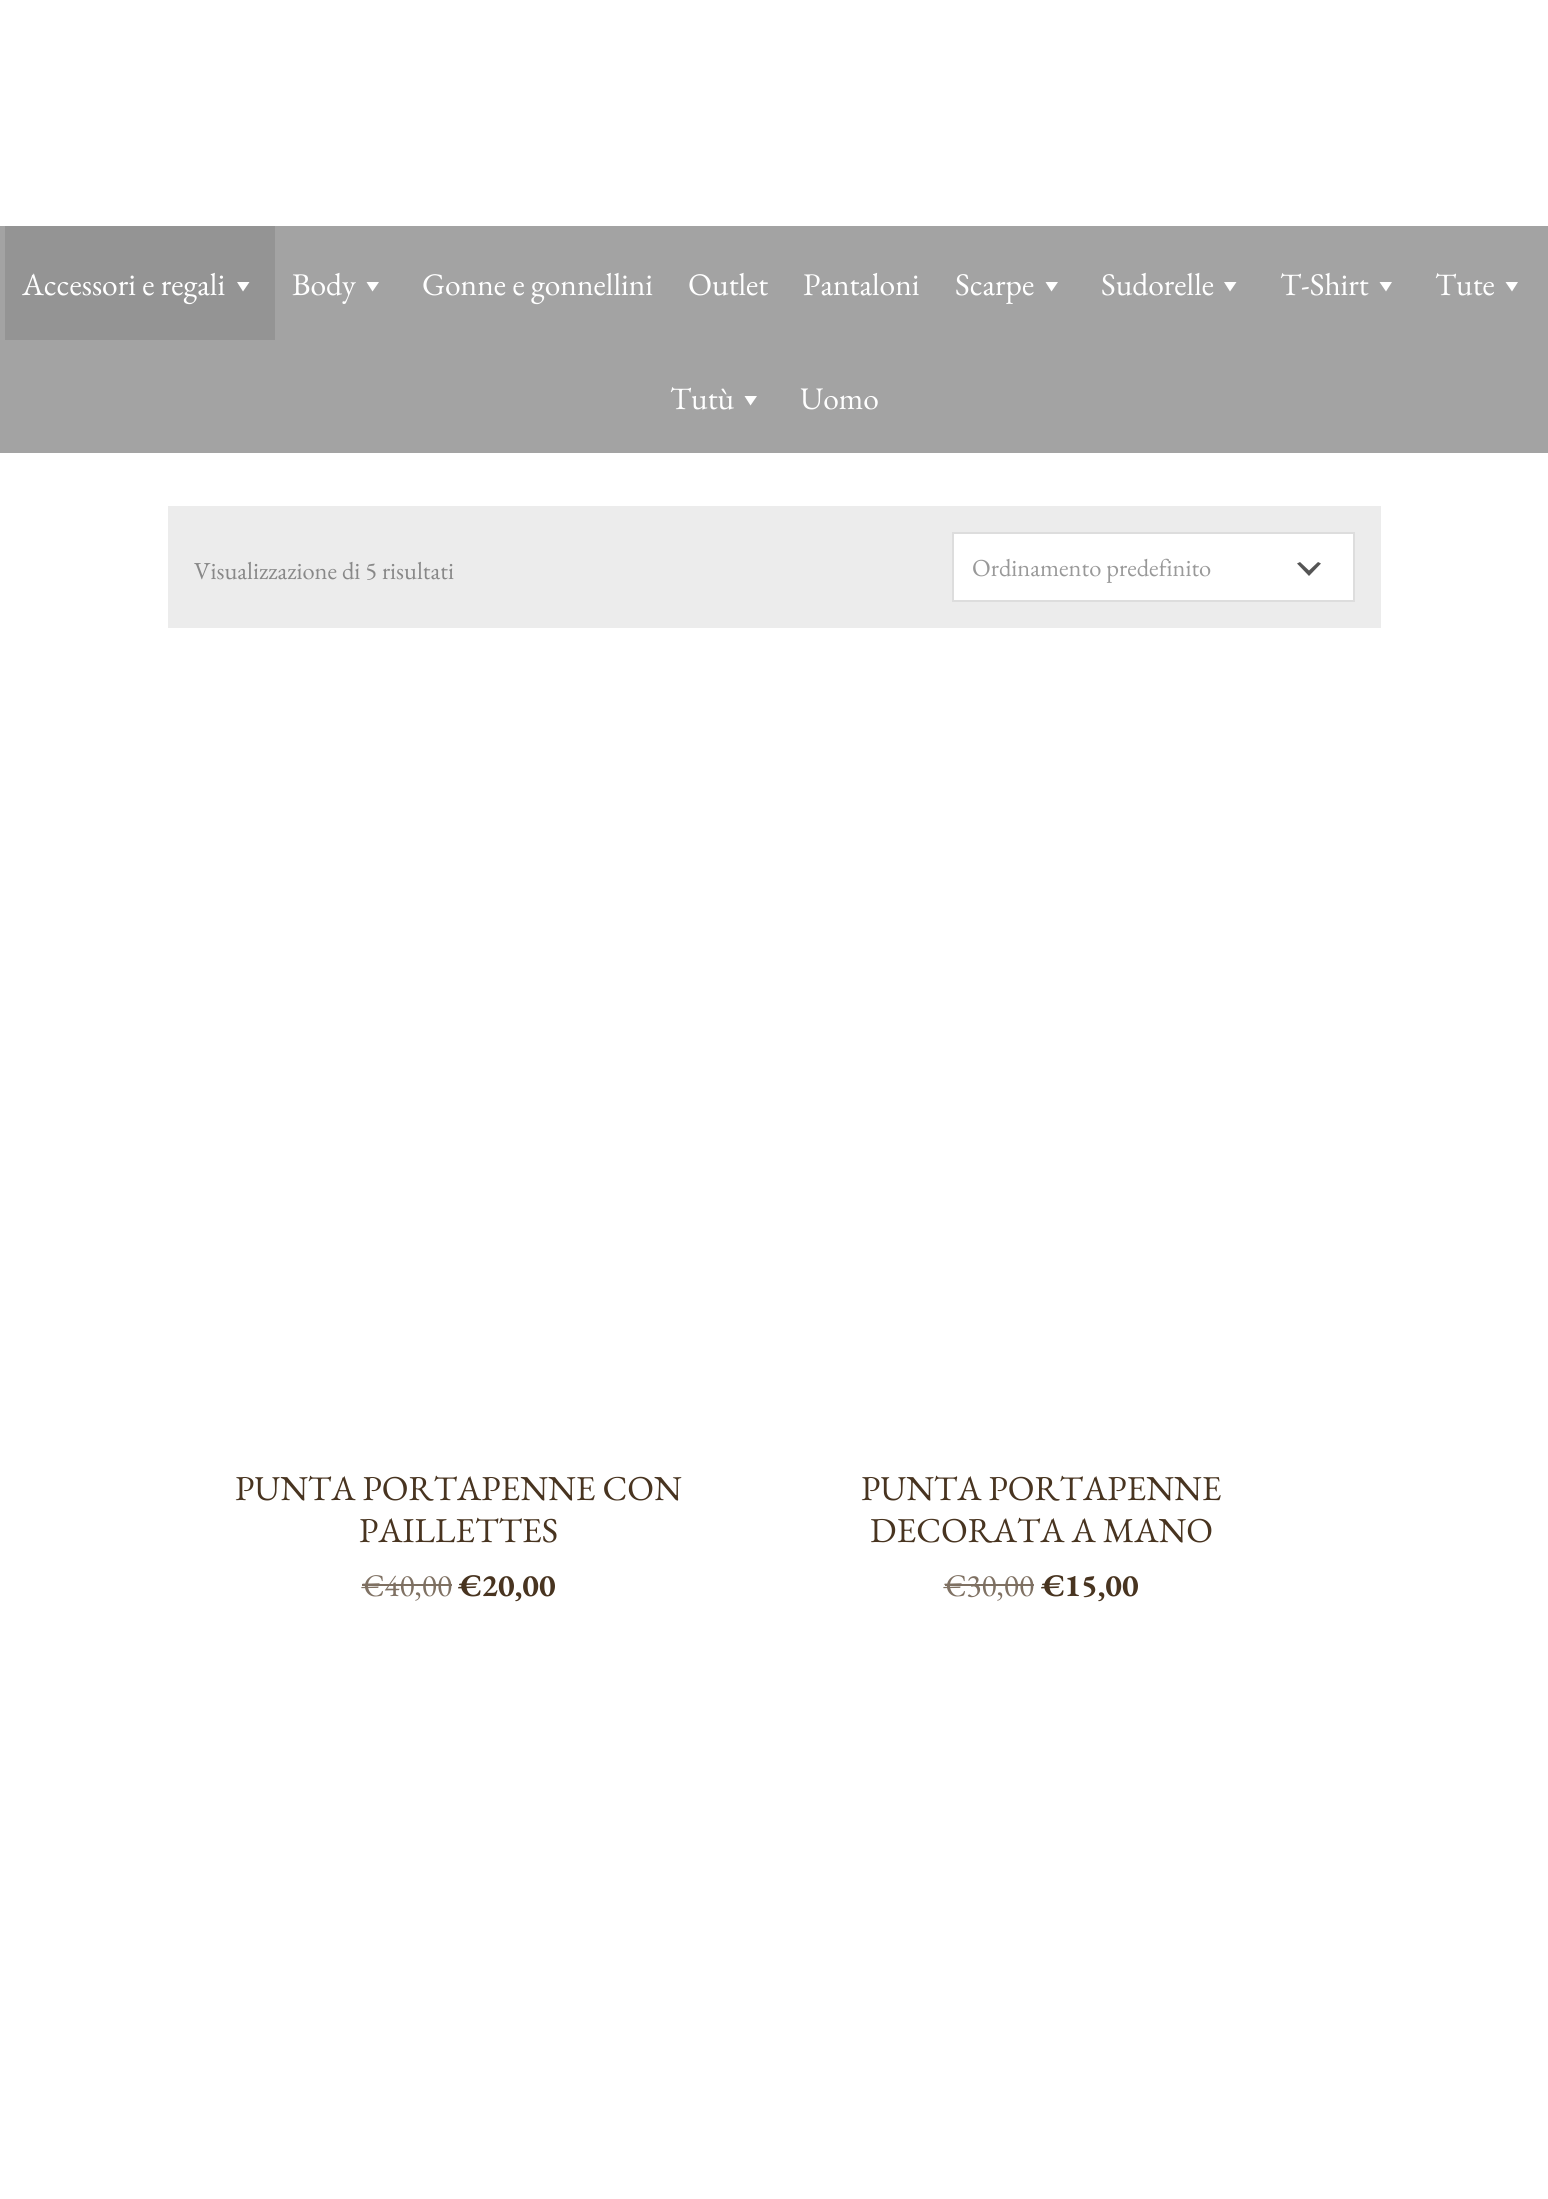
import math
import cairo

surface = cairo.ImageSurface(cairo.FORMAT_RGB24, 1548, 2199)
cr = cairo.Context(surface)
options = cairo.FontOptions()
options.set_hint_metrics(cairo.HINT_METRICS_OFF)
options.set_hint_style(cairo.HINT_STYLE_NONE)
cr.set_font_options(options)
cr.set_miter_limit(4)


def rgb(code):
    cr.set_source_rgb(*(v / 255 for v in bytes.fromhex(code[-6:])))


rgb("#ffffff")
cr.paint()
rgb("#a3a3a3")
cr.rectangle(0, 226, 1548, 227)
cr.fill()
rgb("#949494")
cr.rectangle(5, 226, 270, 114)
cr.fill()
rgb("#ffffff")
cr.new_path()
cr.move_to(249.5, 282)
cr.line_to(243, 291.5)
cr.line_to(237, 282)
cr.close_path()
cr.fill()
cr.new_path()
cr.move_to(379, 282)
cr.line_to(372.5, 291.5)
cr.line_to(366.5, 282)
cr.close_path()
cr.fill()
cr.new_path()
cr.move_to(1058, 282)
cr.line_to(1051.5, 291.5)
cr.line_to(1045.5, 282)
cr.close_path()
cr.fill()
cr.new_path()
cr.move_to(1236.5, 282)
cr.line_to(1230, 291.5)
cr.line_to(1224, 282)
cr.close_path()
cr.fill()
cr.new_path()
cr.move_to(1392, 282)
cr.line_to(1386, 291.5)
cr.line_to(1379.5, 282)
cr.close_path()
cr.fill()
cr.new_path()
cr.move_to(1518, 282)
cr.line_to(1512, 291.5)
cr.line_to(1505.5, 282)
cr.close_path()
cr.fill()
cr.new_path()
cr.move_to(757, 396)
cr.line_to(750.5, 405.5)
cr.line_to(744.5, 396)
cr.close_path()
cr.fill()
rgb("#ececec")
cr.rectangle(168, 506, 1213, 122)
cr.fill()
rgb("#ffffff")
cr.rectangle(954, 534, 399, 66)
cr.fill()
rgb("#555555")
cr.new_path()
cr.move_to(1300, 562)
cr.line_to(1309, 570.5)
cr.line_to(1318, 562)
cr.line_to(1321, 563.5)
cr.line_to(1309, 576)
cr.line_to(1297, 563.5)
cr.close_path()
cr.fill()
cr.rectangle(953, 533, 401, 68)
rgb("#dddddd")
cr.stroke()
cr.select_font_face("EB Garamond")
cr.set_font_size(31.5)
rgb("#ffffff")
for x, y, s in [
    (22, 295, "Accessori e regali"),
    (292, 295, "Body"),
    (422, 295, "Gonne e gonnellini"),
    (688, 295, "Outlet"),
    (803, 295, "Pantaloni"),
    (955, 295, "Scarpe"),
    (1101, 295, "Sudorelle"),
    (1280, 295, "T-Shirt"),
    (1435, 295, "Tute"),
    (670, 409, "Tutù"),
    (800, 409, "Uomo"),
]:
    cr.move_to(x, y)
    cr.show_text(s)
cr.set_font_size(24.5)
rgb("#888888")
cr.move_to(194, 579)
cr.show_text("Visualizzazione di 5 risultati")
rgb("#999999")
cr.move_to(972, 576)
cr.show_text("Ordinamento predefinito")
cr.set_font_size(35)
rgb("#483420")
cr.move_to(235, 1500)
cr.show_text("PUNTA PORTAPENNE CON")
cr.move_to(359, 1542)
cr.show_text("PAILLETTES")
cr.set_font_size(31.5)
rgb("#7f7163")
cr.move_to(362, 1596)
cr.show_text("€40,00")
rgb("#7e7062")
cr.rectangle(362, 1584, 90, 2)
cr.fill()
cr.select_font_face("EB Garamond", cairo.FONT_SLANT_NORMAL, cairo.FONT_WEIGHT_BOLD)
rgb("#483420")
cr.move_to(458, 1596)
cr.show_text("€20,00")
cr.select_font_face("EB Garamond")
cr.set_font_size(35)
cr.move_to(861, 1500)
cr.show_text("PUNTA PORTAPENNE")
cr.move_to(870, 1542)
cr.show_text("DECORATA A MANO")
cr.set_font_size(31.5)
rgb("#7f7163")
cr.move_to(944, 1596)
cr.show_text("€30,00")
rgb("#7e7062")
cr.rectangle(945, 1584, 89, 2)
cr.fill()
cr.select_font_face("EB Garamond", cairo.FONT_SLANT_NORMAL, cairo.FONT_WEIGHT_BOLD)
rgb("#483420")
cr.move_to(1041, 1596)
cr.show_text("€15,00")
surface.write_to_png("page.png")
